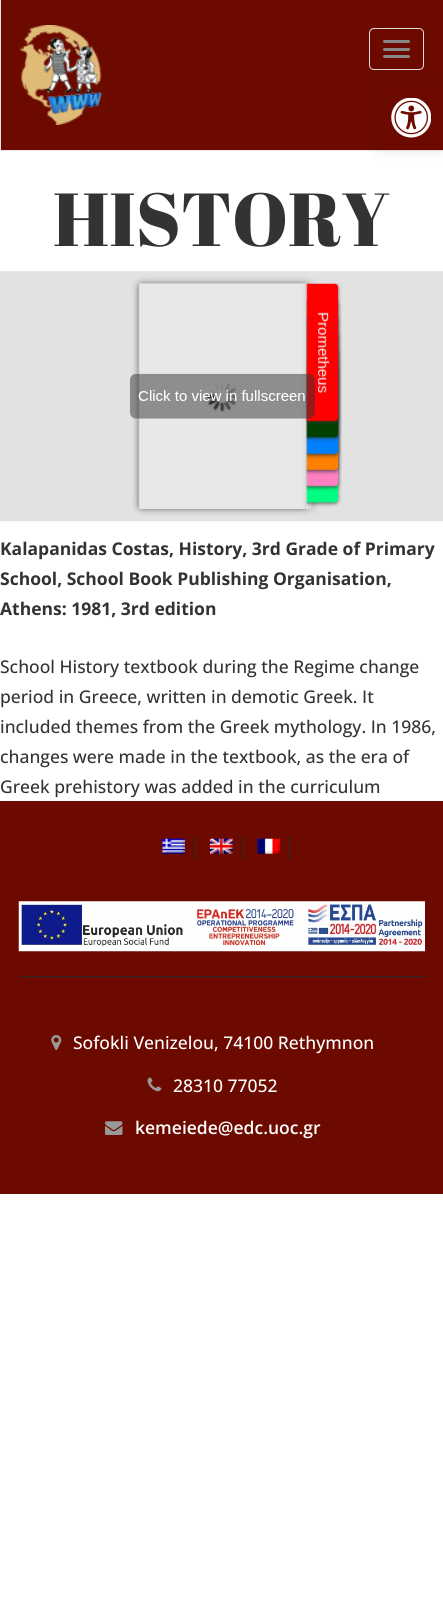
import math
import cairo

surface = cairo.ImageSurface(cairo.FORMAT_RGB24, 443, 1613)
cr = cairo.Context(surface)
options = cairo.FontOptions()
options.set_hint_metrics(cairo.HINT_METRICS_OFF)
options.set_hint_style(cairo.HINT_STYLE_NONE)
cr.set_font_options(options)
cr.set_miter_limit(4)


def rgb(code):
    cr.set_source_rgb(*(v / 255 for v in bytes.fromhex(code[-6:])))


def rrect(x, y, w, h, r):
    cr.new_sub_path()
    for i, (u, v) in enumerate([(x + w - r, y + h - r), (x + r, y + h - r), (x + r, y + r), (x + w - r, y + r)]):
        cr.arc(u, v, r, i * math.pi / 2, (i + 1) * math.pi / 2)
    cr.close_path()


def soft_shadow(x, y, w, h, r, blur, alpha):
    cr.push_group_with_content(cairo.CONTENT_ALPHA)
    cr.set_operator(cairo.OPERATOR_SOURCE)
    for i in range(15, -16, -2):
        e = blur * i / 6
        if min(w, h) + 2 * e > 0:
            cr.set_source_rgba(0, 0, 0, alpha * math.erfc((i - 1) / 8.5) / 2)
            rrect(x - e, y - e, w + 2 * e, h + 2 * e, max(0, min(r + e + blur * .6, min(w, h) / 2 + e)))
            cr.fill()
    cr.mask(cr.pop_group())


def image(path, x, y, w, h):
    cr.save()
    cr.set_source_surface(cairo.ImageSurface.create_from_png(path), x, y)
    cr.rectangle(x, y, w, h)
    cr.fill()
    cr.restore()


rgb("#ffffff")
cr.paint()
rgb("#6d0a00")
cr.rectangle(1, 0, 442, 150)
cr.fill()
rgb("#e7e7e7")
cr.rectangle(0, 150, 443, 1)
cr.fill()
rrect(369.5, 28.5, 54, 41, 4.5)
rgb("#dddddd")
cr.set_line_width(1)
cr.stroke()
cr.save()
cr.set_fill_rule(cairo.FILL_RULE_EVEN_ODD)
cr.new_path()
cr.move_to(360, 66)
cr.line_to(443, 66)
cr.line_to(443, 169)
cr.line_to(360, 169)
cr.close_path()
cr.move_to(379, 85)
cr.line_to(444, 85)
cr.line_to(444, 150)
cr.line_to(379, 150)
cr.close_path()
cr.clip()
rgb("#000000")
soft_shadow(379, 85, 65, 65, 0, 6, 0.1)
cr.restore()
image("img/1.png", 391, 98, 40, 40)
rgb("#e7e7e7")
cr.rectangle(0, 0, 1, 151)
cr.fill()
image("img/2.png", 20, 25, 82, 100)
rgb("#888888")
rrect(383, 40, 27, 3, 1.5)
cr.fill()
rrect(383, 48, 27, 3, 1.5)
cr.fill()
rrect(383, 55, 27, 3, 1.5)
cr.fill()
image("img/3.png", 0, 271, 443, 251)
rgb("#6d0a00")
cr.rectangle(0, 801, 443, 393)
cr.fill()
rgb("#2b2b2b")
cr.rectangle(195, 836, 1, 25)
cr.fill()
image("img/4.png", 162, 838, 23, 16)
cr.rectangle(243, 836, 1, 25)
cr.fill()
image("img/5.png", 210, 838, 23, 16)
cr.rectangle(289, 836, 1, 25)
cr.fill()
image("img/6.png", 257, 838, 23, 16)
image("img/7.png", 18, 901, 407, 51)
cr.rectangle(19, 976, 406, 1)
cr.fill()
image("img/8.png", 51, 1035, 11, 15)
image("img/9.png", 147, 1077, 15, 15)
image("img/10.png", 105, 1121, 18, 14)
cr.select_font_face("Abril Fatface")
cr.set_font_size(75)
rgb("#333333")
cr.move_to(53, 246)
cr.show_text("HISTORY")
cr.select_font_face("Open Sans", cairo.FONT_SLANT_NORMAL, cairo.FONT_WEIGHT_BOLD)
cr.set_font_size(17.5)
for x, y, s in [
    (0, 555, "Kalapanidas Costas, History, 3rd Grade of Primary"),
    (0, 585, "School, School Book Publishing Organisation,"),
    (0, 615, "Athens: 1981, 3rd edition"),
]:
    cr.move_to(x, y)
    cr.show_text(s)
cr.select_font_face("Open Sans Medium")
for x, y, s in [
    (0, 673, "School History textbook during the Regime change"),
    (0, 703, "period in Greece, written in demotic Greek. It"),
    (0, 733, "included themes from the Greek mythology. In 1986,"),
    (0, 763, "changes were made in the textbook, as the era of"),
    (0, 793, "Greek prehistory was added in the curriculum"),
]:
    cr.move_to(x, y)
    cr.show_text(s)
rgb("#ffffff")
cr.move_to(73, 1049)
cr.show_text("Sofokli Venizelou, 74100 Rethymnon")
cr.move_to(173, 1092)
cr.show_text("28310 77052")
cr.select_font_face("Open Sans SemiBold")
cr.move_to(135, 1134)
cr.show_text("kemeiede@edc.uoc.gr")
surface.write_to_png("page.png")
